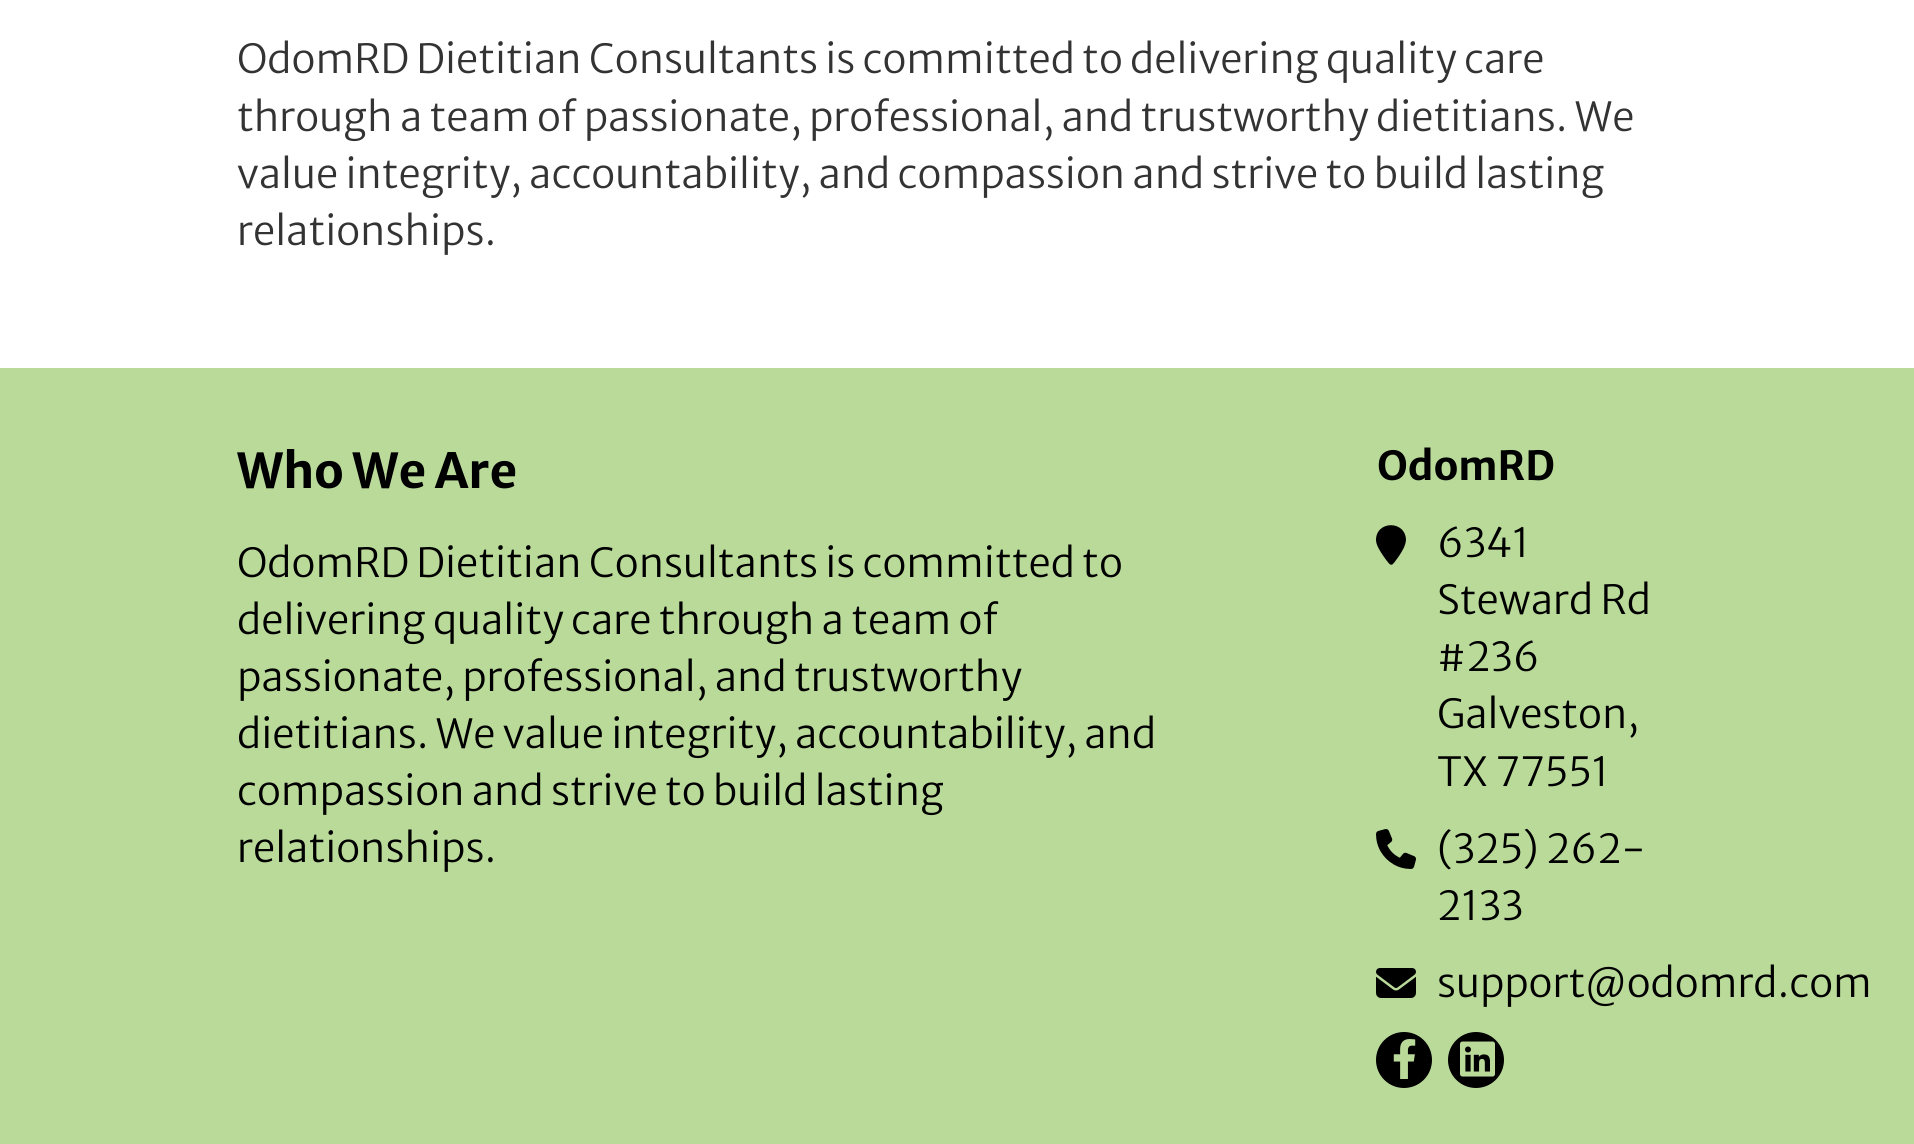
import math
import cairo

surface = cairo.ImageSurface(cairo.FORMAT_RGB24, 1914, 1144)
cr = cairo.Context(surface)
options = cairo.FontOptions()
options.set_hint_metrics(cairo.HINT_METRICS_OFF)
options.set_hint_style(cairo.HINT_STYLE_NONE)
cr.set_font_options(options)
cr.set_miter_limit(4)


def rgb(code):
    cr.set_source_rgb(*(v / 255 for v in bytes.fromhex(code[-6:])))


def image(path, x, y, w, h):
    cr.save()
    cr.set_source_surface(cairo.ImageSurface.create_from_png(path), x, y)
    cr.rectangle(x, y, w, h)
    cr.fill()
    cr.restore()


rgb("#ffffff")
cr.paint()
rgb("#bada9a")
cr.rectangle(0, 368, 1914, 776)
cr.fill()
rgb("#000000")
cr.new_path()
cr.move_to(1406, 540)
cr.curve_to(1405.5, 546, 1402, 551.5, 1399, 556)
cr.curve_to(1391, 567, 1392, 568, 1384, 557)
cr.curve_to(1381, 552.5, 1376, 545.5, 1376, 540)
cr.curve_to(1376, 520.5, 1405.5, 520, 1406, 540)
cr.close_path()
cr.fill()
image("img/1.png", 1376, 829, 40, 40)
image("img/2.png", 1376, 968, 40, 30)
cr.arc(1404, 1060, 28, 0, 2 * math.pi)
cr.fill()
image("img/3.png", 1393, 1039, 23, 40)
cr.arc(1476, 1060, 28, 0, 2 * math.pi)
cr.fill()
image("img/4.png", 1460, 1041, 35, 36)
cr.select_font_face("Merriweather Sans Light")
cr.set_font_size(40)
rgb("#333333")
for x, y, s in [
    (237, 73, "OdomRD Dietitian Consultants is committed to delivering quality care"),
    (237, 131, "through a team of passionate, professional, and trustworthy dietitians. We"),
    (237, 188, "value integrity, accountability, and compassion and strive to build lasting"),
    (237, 245, "relationships."),
]:
    cr.move_to(x, y)
    cr.show_text(s)
cr.select_font_face("Merriweather Sans", cairo.FONT_SLANT_NORMAL, cairo.FONT_WEIGHT_BOLD)
cr.set_font_size(48)
rgb("#000000")
cr.move_to(237, 488)
cr.show_text("Who We Are")
cr.select_font_face("Merriweather Sans Light")
cr.set_font_size(40)
for x, y, s in [
    (237, 577, "OdomRD Dietitian Consultants is committed to"),
    (237, 634, "delivering quality care through a team of"),
    (237, 691, "passionate, professional, and trustworthy"),
    (237, 748, "dietitians. We value integrity, accountability, and"),
    (237, 805, "compassion and strive to build lasting"),
    (237, 862, "relationships."),
]:
    cr.move_to(x, y)
    cr.show_text(s)
cr.select_font_face("Merriweather Sans", cairo.FONT_SLANT_NORMAL, cairo.FONT_WEIGHT_BOLD)
cr.move_to(1377, 480)
cr.show_text("OdomRD")
cr.select_font_face("Merriweather Sans Light")
for x, y, s in [
    (1437, 557, "6341"),
    (1437, 614, "Steward Rd"),
    (1437, 671, "#236"),
    (1437, 728, "Galveston,"),
    (1437, 786, "TX 77551"),
    (1437, 863, "(325) 262-"),
    (1437, 920, "2133"),
    (1437, 997, "support@odomrd.com"),
]:
    cr.move_to(x, y)
    cr.show_text(s)
surface.write_to_png("page.png")
